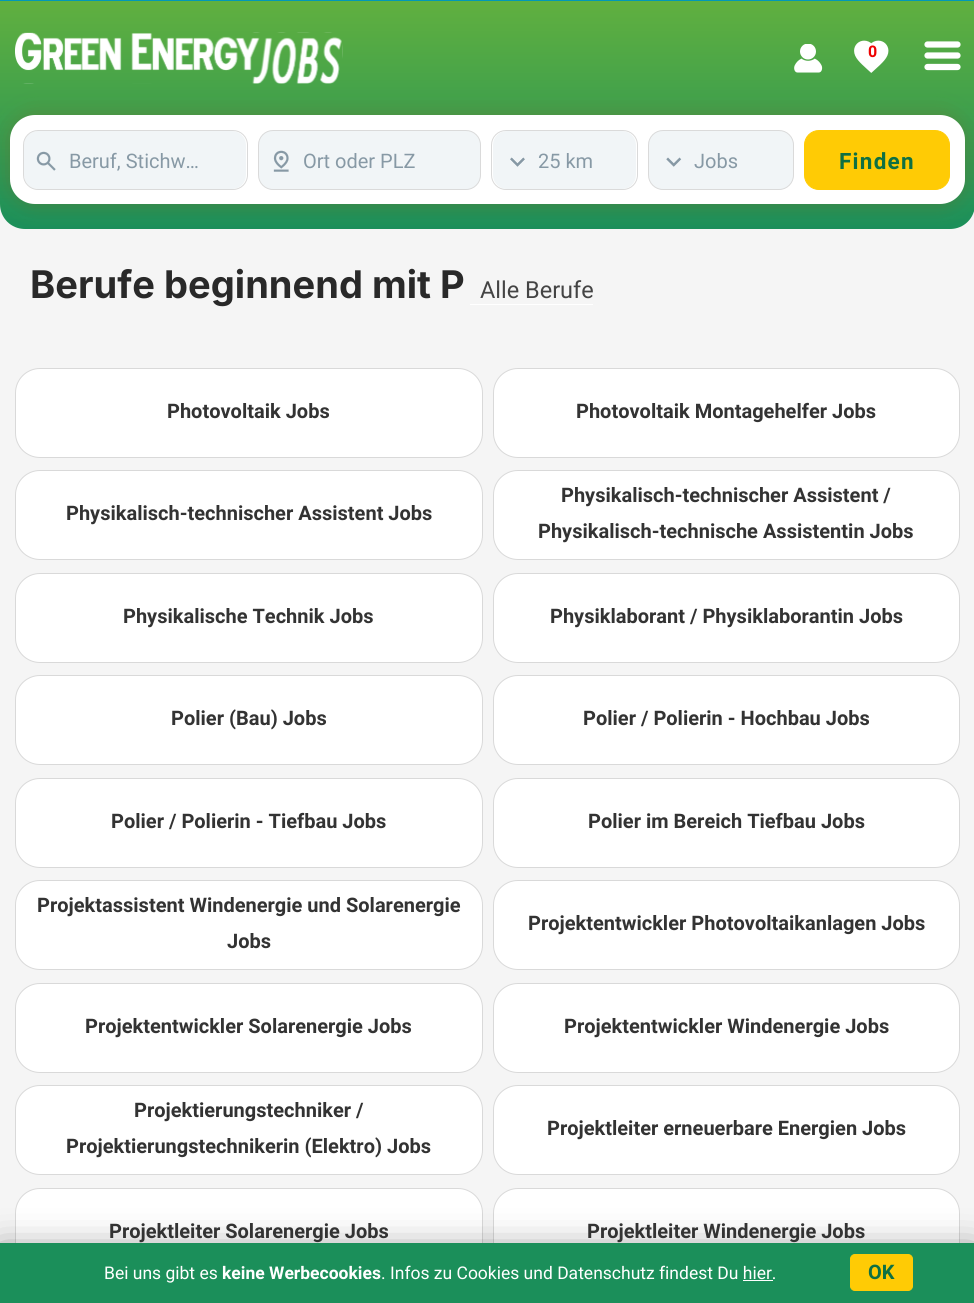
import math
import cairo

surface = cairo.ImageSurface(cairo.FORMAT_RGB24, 974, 1303)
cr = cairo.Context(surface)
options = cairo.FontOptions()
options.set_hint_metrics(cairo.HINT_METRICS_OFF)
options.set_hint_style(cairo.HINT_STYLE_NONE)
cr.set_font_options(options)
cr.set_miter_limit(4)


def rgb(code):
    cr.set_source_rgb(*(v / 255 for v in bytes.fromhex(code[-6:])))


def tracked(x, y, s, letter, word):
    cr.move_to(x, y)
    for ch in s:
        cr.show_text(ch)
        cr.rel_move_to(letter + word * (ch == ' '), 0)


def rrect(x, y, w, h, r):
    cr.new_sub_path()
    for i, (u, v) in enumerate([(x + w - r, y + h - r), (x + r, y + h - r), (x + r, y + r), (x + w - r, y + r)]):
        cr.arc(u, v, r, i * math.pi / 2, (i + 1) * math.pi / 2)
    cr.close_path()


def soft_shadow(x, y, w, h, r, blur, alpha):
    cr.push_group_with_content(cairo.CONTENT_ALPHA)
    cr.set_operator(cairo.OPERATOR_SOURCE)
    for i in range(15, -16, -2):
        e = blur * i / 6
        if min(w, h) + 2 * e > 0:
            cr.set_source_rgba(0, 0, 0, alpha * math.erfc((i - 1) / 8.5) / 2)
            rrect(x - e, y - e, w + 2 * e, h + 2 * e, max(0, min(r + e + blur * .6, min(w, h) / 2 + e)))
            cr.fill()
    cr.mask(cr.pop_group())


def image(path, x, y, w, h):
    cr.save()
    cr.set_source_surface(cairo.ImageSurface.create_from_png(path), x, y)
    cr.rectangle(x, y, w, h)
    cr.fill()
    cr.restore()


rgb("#f5f5f5")
cr.paint()
gradient = cairo.LinearGradient(488, 0, 488, 229)
gradient.add_color_stop_rgba(0, 0.38, 0.69, 0.247, 1)
gradient.add_color_stop_rgba(1, 0.106, 0.561, 0.353, 1)
cr.set_source(gradient)
cr.new_path()
cr.move_to(0, 0)
cr.line_to(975, 0)
cr.line_to(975, 204)
cr.curve_to(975, 218, 964, 229, 950, 229)
cr.line_to(25, 229)
cr.curve_to(11, 229, 0, 218, 0, 204)
cr.close_path()
cr.fill()
rgb("#0198b8")
cr.rectangle(0, 0, 974, 1)
cr.fill()
image("img/1.png", 15, 32, 328, 52)
image("img/2.png", 794, 44, 29, 29)
image("img/3.png", 854, 40, 35, 33)
cr.new_path()
cr.move_to(927.5, 44.5)
cr.line_to(957.5, 44.5)
cr.move_to(927.5, 55.5)
cr.line_to(957.5, 55.5)
cr.move_to(927.5, 67)
cr.line_to(957.5, 67)
rgb("#ffffff")
cr.set_line_width(6.2)
cr.set_line_cap(cairo.LINE_CAP_ROUND)
cr.stroke()
rgb("#7a6221")
soft_shadow(10, 115, 955, 89, 25, 10, 0.4)
rgb("#ffffff")
rrect(10, 115, 955, 89, 25)
cr.fill()
rgb("#f1f5f7")
rrect(24, 131, 222, 58, 14)
cr.fill()
rrect(23.5, 130.5, 224, 59, 14.5)
rgb("#dadada")
cr.set_line_width(1)
cr.set_line_cap(cairo.LINE_CAP_BUTT)
cr.stroke()
image("img/4.png", 36, 151, 20, 20)
rgb("#f1f5f7")
rrect(258.5, 130.5, 222, 59, 14.5)
cr.fill_preserve()
rgb("#dadada")
cr.stroke()
image("img/5.png", 273, 150, 16, 22)
rgb("#f1f5f7")
rrect(493, 131, 143, 58, 14)
cr.fill()
rrect(491.5, 130.5, 146, 59, 14.5)
rgb("#dadada")
cr.stroke()
image("img/6.png", 510, 157, 15, 10)
rgb("#f1f5f7")
rrect(648.5, 130.5, 145, 59, 14.5)
cr.fill_preserve()
rgb("#dadada")
cr.stroke()
image("img/7.png", 666, 157, 16, 10)
rgb("#ffcb05")
rrect(804.5, 130.5, 145, 59, 14.5)
cr.fill_preserve()
cr.stroke()
rgb("#ffffff")
cr.rectangle(470, 304, 123, 1)
cr.fill()
rrect(15.5, 368.5, 467, 89, 24.5)
cr.fill_preserve()
rgb("#d9d9d9")
cr.stroke()
rgb("#ffffff")
rrect(493.5, 368.5, 466, 89, 24.5)
cr.fill_preserve()
rgb("#d9d9d9")
cr.stroke()
rgb("#ffffff")
rrect(15.5, 470.5, 467, 89, 24.5)
cr.fill_preserve()
rgb("#d9d9d9")
cr.stroke()
rgb("#ffffff")
rrect(493.5, 470.5, 466, 89, 24.5)
cr.fill_preserve()
rgb("#d9d9d9")
cr.stroke()
rgb("#ffffff")
rrect(15.5, 573.5, 467, 89, 24.5)
cr.fill_preserve()
rgb("#d9d9d9")
cr.stroke()
rgb("#ffffff")
rrect(493.5, 573.5, 466, 89, 24.5)
cr.fill_preserve()
rgb("#d9d9d9")
cr.stroke()
rgb("#ffffff")
rrect(15.5, 675.5, 467, 89, 24.5)
cr.fill_preserve()
rgb("#d9d9d9")
cr.stroke()
rgb("#ffffff")
rrect(493.5, 675.5, 466, 89, 24.5)
cr.fill_preserve()
rgb("#d9d9d9")
cr.stroke()
rgb("#ffffff")
rrect(15.5, 778.5, 467, 89, 24.5)
cr.fill_preserve()
rgb("#d9d9d9")
cr.stroke()
rgb("#ffffff")
rrect(493.5, 778.5, 466, 89, 24.5)
cr.fill_preserve()
rgb("#d9d9d9")
cr.stroke()
rgb("#ffffff")
rrect(15.5, 880.5, 467, 89, 24.5)
cr.fill_preserve()
rgb("#d9d9d9")
cr.stroke()
rgb("#ffffff")
rrect(493.5, 880.5, 466, 89, 24.5)
cr.fill_preserve()
rgb("#d9d9d9")
cr.stroke()
rgb("#ffffff")
rrect(15.5, 983.5, 467, 89, 24.5)
cr.fill_preserve()
rgb("#d9d9d9")
cr.stroke()
rgb("#ffffff")
rrect(493.5, 983.5, 466, 89, 24.5)
cr.fill_preserve()
rgb("#d9d9d9")
cr.stroke()
rgb("#ffffff")
rrect(15.5, 1085.5, 467, 89, 24.5)
cr.fill_preserve()
rgb("#d9d9d9")
cr.stroke()
rgb("#ffffff")
rrect(493.5, 1085.5, 466, 89, 24.5)
cr.fill_preserve()
rgb("#d9d9d9")
cr.stroke()
rgb("#ffffff")
rrect(15.5, 1188.5, 467, 89, 24.5)
cr.fill_preserve()
rgb("#d9d9d9")
cr.stroke()
rgb("#ffffff")
rrect(493.5, 1188.5, 466, 89, 24.5)
cr.fill_preserve()
rgb("#d9d9d9")
cr.stroke()
rgb("#020203")
soft_shadow(0, 1255, 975, 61, 0, 19, 0.6)
rgb("#1b8f5a")
cr.rectangle(0, 1243, 974, 60)
cr.fill()
rgb("#ffffff")
cr.rectangle(743, 1280, 30, 1)
cr.fill()
rgb("#ffcb05")
rrect(850.5, 1254.5, 62, 36, 4.5)
cr.fill_preserve()
cr.stroke()
cr.select_font_face("Roboto", cairo.FONT_SLANT_NORMAL, cairo.FONT_WEIGHT_BOLD)
cr.set_font_size(16)
rgb("#ee0201")
cr.move_to(868, 57)
cr.show_text("0")
cr.select_font_face("Roboto")
cr.set_font_size(20)
rgb("#8799a5")
for x, y, s in [
    (69, 168, "Beruf, Stichw…"),
    (303, 168, "Ort oder PLZ"),
    (538, 168, "25 km"),
    (694, 168, "Jobs"),
]:
    cr.move_to(x, y)
    cr.show_text(s)
cr.select_font_face("Roboto", cairo.FONT_SLANT_NORMAL, cairo.FONT_WEIGHT_BOLD)
cr.set_font_size(22.5)
rgb("#0e7043")
tracked(839, 169, "Finden", 1.25, 0)
cr.select_font_face("Inter", cairo.FONT_SLANT_NORMAL, cairo.FONT_WEIGHT_BOLD)
cr.set_font_size(38.1)
rgb("#292929")
cr.move_to(30, 298)
cr.show_text("Berufe beginnend mit P")
cr.select_font_face("Roboto")
cr.set_font_size(23.5)
rgb("#444444")
cr.move_to(480, 298)
cr.show_text("Alle Berufe")
cr.select_font_face("Roboto", cairo.FONT_SLANT_NORMAL, cairo.FONT_WEIGHT_BOLD)
cr.set_font_size(20)
rgb("#333333")
for x, y, s in [
    (167, 418, "Photovoltaik Jobs"),
    (576, 418, "Photovoltaik Montagehelfer Jobs"),
    (66, 520, "Physikalisch-technischer Assistent Jobs"),
    (561, 502, "Physikalisch-technischer Assistent /"),
    (538, 538, "Physikalisch-technische Assistentin Jobs"),
    (123, 623, "Physikalische Technik Jobs"),
    (550, 623, "Physiklaborant / Physiklaborantin Jobs"),
    (171, 725, "Polier (Bau) Jobs"),
    (583, 725, "Polier / Polierin - Hochbau Jobs"),
    (111, 828, "Polier / Polierin - Tiefbau Jobs"),
    (588, 828, "Polier im Bereich Tiefbau Jobs"),
    (37, 912, "Projektassistent Windenergie und Solarenergie"),
    (227, 948, "Jobs"),
    (528, 930, "Projektentwickler Photovoltaikanlagen Jobs"),
    (85, 1033, "Projektentwickler Solarenergie Jobs"),
    (564, 1033, "Projektentwickler Windenergie Jobs"),
    (134, 1117, "Projektierungstechniker /"),
    (66, 1153, "Projektierungstechnikerin (Elektro) Jobs"),
    (547, 1135, "Projektleiter erneuerbare Energien Jobs"),
    (109, 1238, "Projektleiter Solarenergie Jobs"),
    (587, 1238, "Projektleiter Windenergie Jobs"),
]:
    cr.move_to(x, y)
    cr.show_text(s)
cr.select_font_face("Roboto")
cr.set_font_size(17.5)
rgb("#ffffff")
cr.move_to(104, 1279)
cr.show_text("Bei uns gibt es")
cr.select_font_face("Roboto", cairo.FONT_SLANT_NORMAL, cairo.FONT_WEIGHT_BOLD)
cr.move_to(222, 1279)
cr.show_text("keine Werbecookies")
cr.select_font_face("Roboto")
cr.move_to(381, 1279)
cr.show_text(". Infos zu Cookies und Datenschutz findest Du hier.")
cr.select_font_face("Roboto", cairo.FONT_SLANT_NORMAL, cairo.FONT_WEIGHT_BOLD)
cr.set_font_size(20)
rgb("#0e7043")
cr.move_to(868, 1279)
cr.show_text("OK")
surface.write_to_png("page.png")
